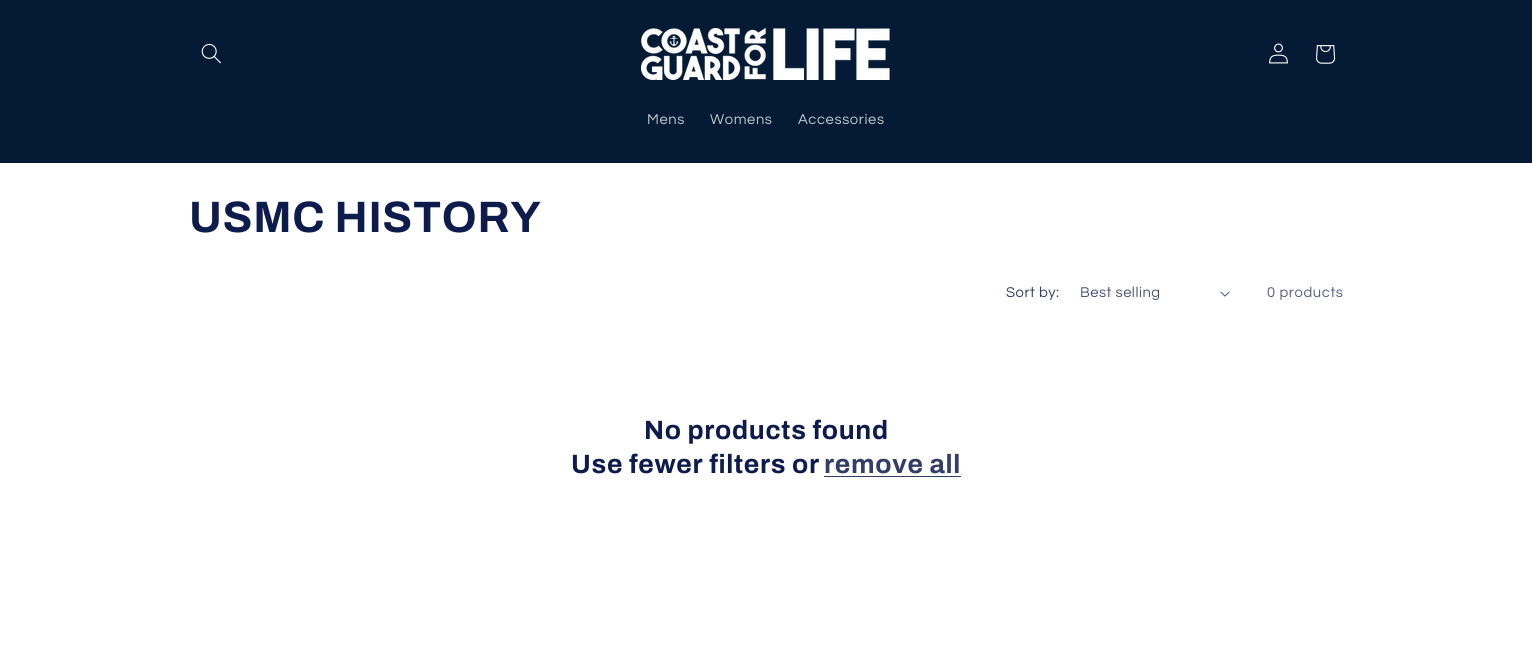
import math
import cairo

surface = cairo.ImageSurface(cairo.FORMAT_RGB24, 1532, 646)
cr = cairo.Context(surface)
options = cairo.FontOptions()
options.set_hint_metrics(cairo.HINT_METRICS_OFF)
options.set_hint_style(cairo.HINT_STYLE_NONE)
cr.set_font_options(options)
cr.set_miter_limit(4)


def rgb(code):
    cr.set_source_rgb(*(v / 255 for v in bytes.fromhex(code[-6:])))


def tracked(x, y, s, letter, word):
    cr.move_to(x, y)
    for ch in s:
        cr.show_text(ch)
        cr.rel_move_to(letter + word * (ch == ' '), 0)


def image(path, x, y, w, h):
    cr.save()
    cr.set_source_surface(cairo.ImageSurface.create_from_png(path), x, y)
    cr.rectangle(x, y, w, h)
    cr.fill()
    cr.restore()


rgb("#ffffff")
cr.paint()
rgb("#041a35")
cr.rectangle(0, 0, 1532, 163)
cr.fill()
image("img/1.png", 201, 43, 20, 21)
image("img/2.png", 641, 28, 249, 52)
image("img/3.png", 1269, 43, 19, 21)
image("img/4.png", 1316, 45, 20, 19)
image("img/5.png", 1220, 291, 10, 6)
rgb("#323d68")
cr.rectangle(824, 476, 137, 1)
cr.fill()
cr.select_font_face("Questrial")
cr.set_font_size(14.75)
rgb("#c0c6cd")
for x, y, s in [
    (647, 124, "Mens"),
    (710, 124, "Womens"),
    (798, 124, "Accessories"),
]:
    tracked(x, y, s, 0.6, 0)
cr.select_font_face("Archivo", cairo.FONT_SLANT_NORMAL, cairo.FONT_WEIGHT_BOLD)
cr.set_font_size(44)
rgb("#0e1b4d")
tracked(189, 232, "USMC HISTORY", 0.7, 0)
cr.select_font_face("Questrial")
cr.set_font_size(14.75)
rgb("#323d68")
tracked(1006, 297, "Sort by:", 0.5, 0)
rgb("#4a547a")
tracked(1080, 297, "Best selling", 0.5, 0)
rgb("#565f82")
tracked(1267, 297, "0 products", 0.6, 0)
cr.select_font_face("Archivo", cairo.FONT_SLANT_NORMAL, cairo.FONT_WEIGHT_BOLD)
cr.set_font_size(26.5)
rgb("#0e1b4d")
tracked(644, 439, "No products found", 0.7, 0)
tracked(571, 473, "Use fewer filters or", 0.7, 0)
rgb("#323d68")
tracked(824, 473, "remove all", 0.7, 0)
surface.write_to_png("page.png")
